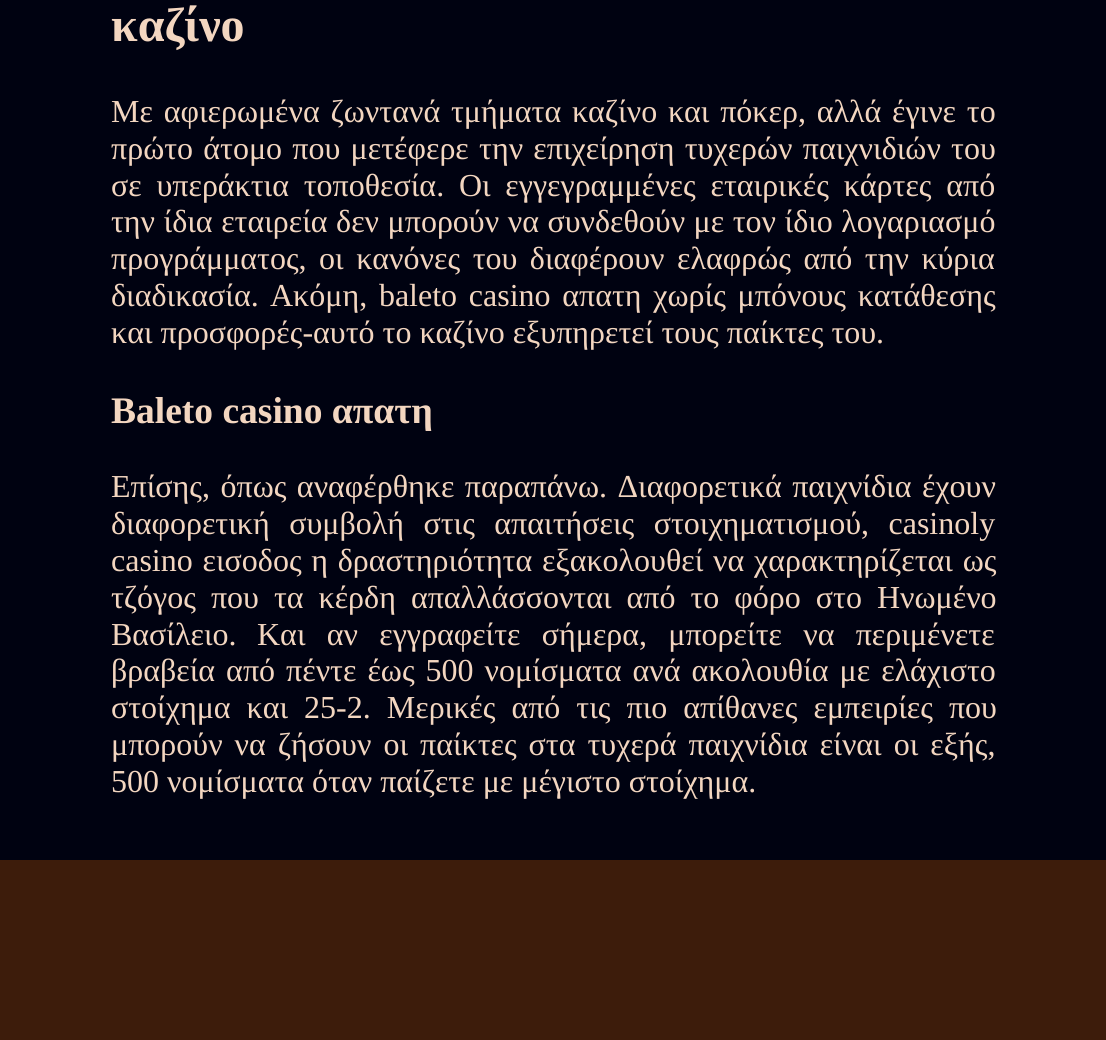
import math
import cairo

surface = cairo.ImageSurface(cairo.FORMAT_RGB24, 1106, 1040)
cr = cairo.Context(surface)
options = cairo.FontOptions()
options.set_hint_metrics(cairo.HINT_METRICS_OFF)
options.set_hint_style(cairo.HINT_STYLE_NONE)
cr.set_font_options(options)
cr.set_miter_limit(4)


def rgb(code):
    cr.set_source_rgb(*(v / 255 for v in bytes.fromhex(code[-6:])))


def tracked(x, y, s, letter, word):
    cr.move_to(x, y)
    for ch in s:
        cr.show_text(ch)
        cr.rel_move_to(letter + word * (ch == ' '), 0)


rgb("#000211")
cr.paint()
rgb("#3d1c0b")
cr.rectangle(0, 860, 1106, 180)
cr.fill()
cr.select_font_face("Liberation Serif", cairo.FONT_SLANT_NORMAL, cairo.FONT_WEIGHT_BOLD)
cr.set_font_size(48)
rgb("#f3d6c0")
cr.move_to(111, 41)
cr.show_text("καζίνο")
cr.select_font_face("Liberation Serif")
cr.set_font_size(32)
tracked(111, 122, "Με αφιερωμένα ζωντανά τμήματα καζίνο και πόκερ, αλλά έγινε το", 0, 2.75)
tracked(111, 159, "πρώτο άτομο που μετέφερε την επιχείρηση τυχερών παιχνιδιών του", 0, 2.25)
tracked(111, 196, "σε υπεράκτια τοποθεσία. Οι εγγεγραμμένες εταιρικές κάρτες από", 0, 6.75)
tracked(111, 232, "την ίδια εταιρεία δεν μπορούν να συνδεθούν με τον ίδιο λογαριασμό", 0, 0.5)
tracked(111, 269, "προγράμματος, οι κανόνες του διαφέρουν ελαφρώς από την κύρια", 0, 4.5)
cr.move_to(111, 306)
cr.show_text("διαδικασία.")
tracked(270, 306, "Ακόμη, baleto casino απατη χωρίς μπόνους κατάθεσης", 0, 3.75)
cr.move_to(111, 343)
cr.show_text("και προσφορές-αυτό το καζίνο εξυπηρετεί τους παίκτες του.")
cr.select_font_face("Liberation Serif", cairo.FONT_SLANT_NORMAL, cairo.FONT_WEIGHT_BOLD)
cr.set_font_size(37.5)
cr.move_to(111, 423)
cr.show_text("Baleto casino απατη")
cr.select_font_face("Liberation Serif")
cr.set_font_size(32)
tracked(111, 497, "Επίσης, όπως αναφέρθηκε παραπάνω. Διαφορετικά παιχνίδια έχουν", 0, 2.5)
tracked(111, 534, "διαφορετική συμβολή στις απαιτήσεις στοιχηματισμού, casinoly", 0, 11.5)
tracked(111, 571, "casino εισοδος η δραστηριότητα εξακολουθεί να χαρακτηρίζεται ως", 0, 1.75)
tracked(111, 608, "τζόγος που τα κέρδη απαλλάσσονται από το φόρο στο Ηνωμένο", 0, 7)
cr.move_to(111, 645)
cr.show_text("Βασίλειο.")
tracked(257, 645, "Και αν εγγραφείτε σήμερα, μπορείτε να περιμένετε", 0, 13.25)
tracked(111, 681, "βραβεία από πέντε έως 500 νομίσματα ανά ακολουθία με ελάχιστο", 0, 3)
tracked(111, 718, "στοίχημα και 25-2. Μερικές από τις πιο απίθανες εμπειρίες που", 0, 8)
tracked(111, 755, "μπορούν να ζήσουν οι παίκτες στα τυχερά παιχνίδια είναι οι εξής,", 0, 4)
cr.move_to(111, 792)
cr.show_text("500 νομίσματα όταν παίζετε με μέγιστο στοίχημα.")
surface.write_to_png("page.png")
